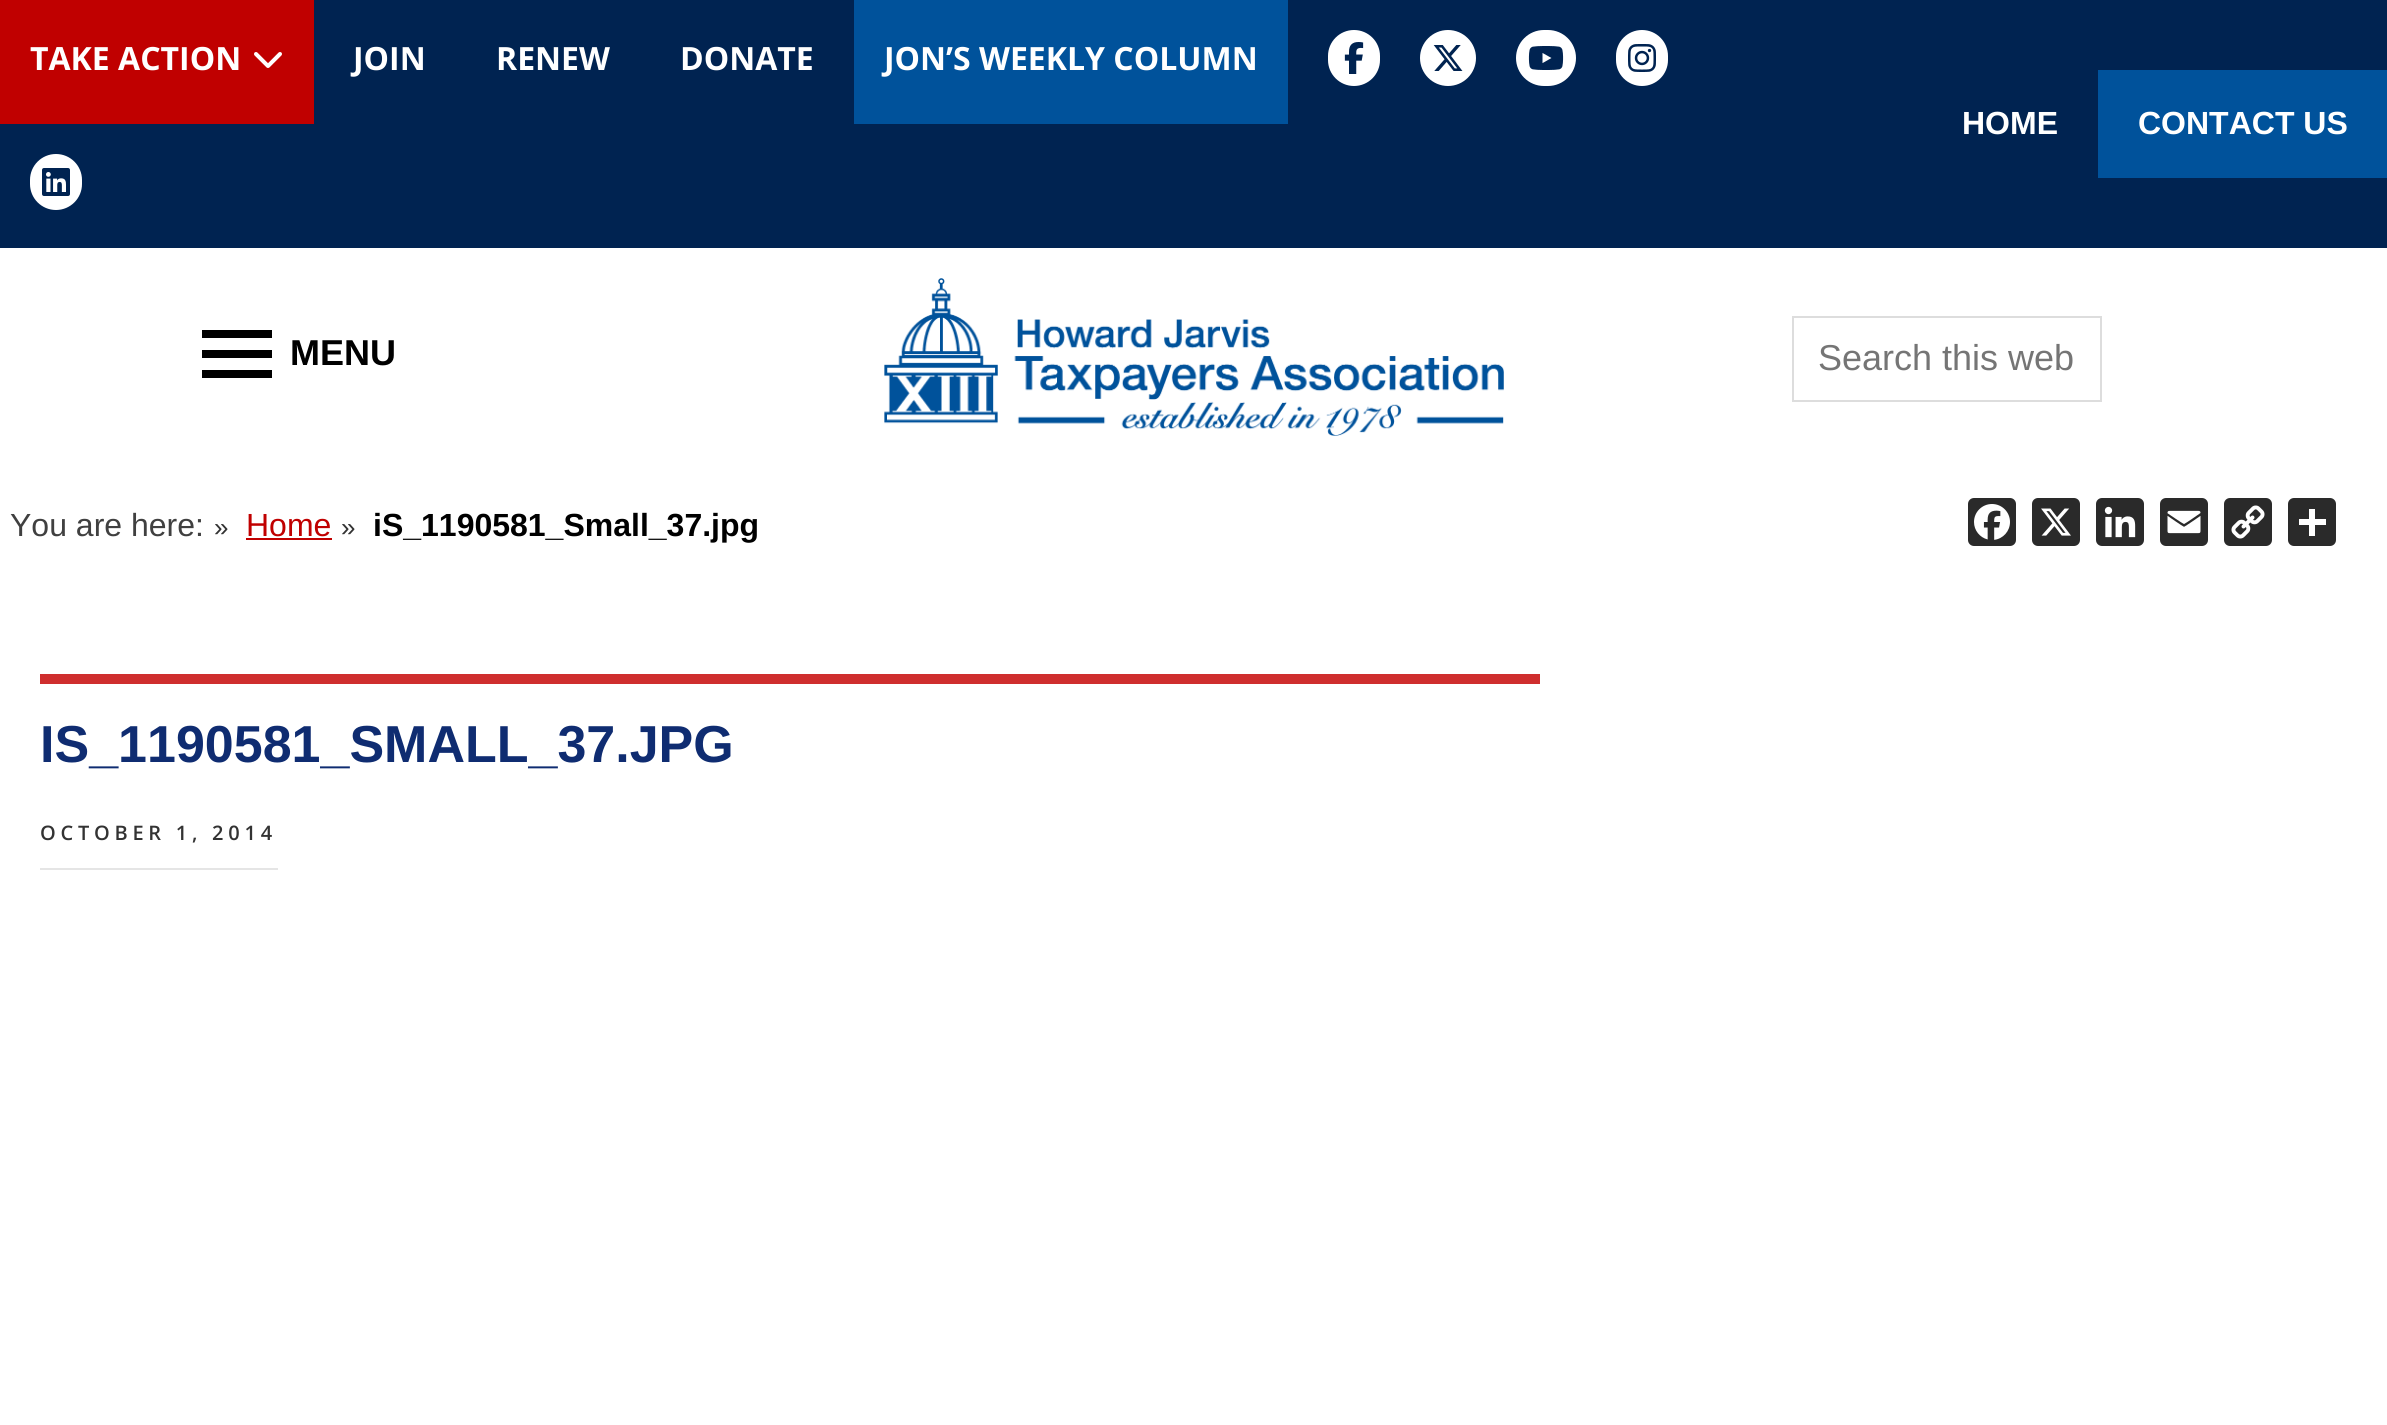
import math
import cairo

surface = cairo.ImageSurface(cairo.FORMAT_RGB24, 2387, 1425)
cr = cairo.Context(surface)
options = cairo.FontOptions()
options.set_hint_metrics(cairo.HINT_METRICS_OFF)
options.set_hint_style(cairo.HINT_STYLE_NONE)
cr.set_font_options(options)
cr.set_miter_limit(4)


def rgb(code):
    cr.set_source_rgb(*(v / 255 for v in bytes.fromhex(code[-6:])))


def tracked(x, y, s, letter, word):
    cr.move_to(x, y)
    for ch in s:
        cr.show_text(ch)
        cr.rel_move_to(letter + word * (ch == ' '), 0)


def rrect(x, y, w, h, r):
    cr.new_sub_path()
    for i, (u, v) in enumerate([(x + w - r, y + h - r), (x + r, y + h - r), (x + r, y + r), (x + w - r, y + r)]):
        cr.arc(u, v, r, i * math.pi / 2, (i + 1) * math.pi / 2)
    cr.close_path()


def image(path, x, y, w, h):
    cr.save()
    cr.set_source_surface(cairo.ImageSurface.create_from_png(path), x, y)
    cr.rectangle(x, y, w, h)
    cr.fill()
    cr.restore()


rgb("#ffffff")
cr.paint()
rgb("#002351")
cr.rectangle(0, 0, 2387, 248)
cr.fill()
rgb("#c00000")
cr.rectangle(0, 0, 314, 124)
cr.fill()
image("img/1.png", 254, 52, 28, 16)
rgb("#00529b")
cr.rectangle(854, 0, 434, 124)
cr.fill()
rgb("#ffffff")
rrect(1328, 30, 52, 56, 26)
cr.fill()
image("img/2.png", 1344, 42, 20, 32)
cr.arc(1448, 58, 28, 0, 2 * math.pi)
cr.fill()
image("img/3.png", 1433, 45, 30, 26)
rrect(1516, 30, 60, 56, 28)
cr.fill()
image("img/4.png", 1528, 46, 36, 24)
rrect(1616, 30, 52, 56, 26)
cr.fill()
image("img/5.png", 1628, 44, 28, 28)
rrect(30, 154, 52, 56, 26)
cr.fill()
image("img/6.png", 42, 168, 28, 28)
for x, y, w, h, color in [
    (2098, 70, 289, 108, "#00529b"),
    (202, 350, 70, 8, "#000000"),
    (202, 330, 70, 8, "#000000"),
    (202, 370, 70, 8, "#000000"),
]:
    rgb(color)
    cr.rectangle(x, y, w, h)
    cr.fill()
image("img/7.png", 884, 278, 620, 158)
cr.rectangle(1793, 317, 308, 84)
rgb("#dddddd")
cr.stroke()
rgb("#c00000")
cr.rectangle(246, 538, 86, 2)
cr.fill()
rgb("#2a2a2a")
rrect(1968, 498, 48, 48, 6)
cr.fill()
image("img/8.png", 1974, 504, 36, 36)
rrect(2032, 498, 48, 48, 6)
cr.fill()
image("img/9.png", 2041, 508, 30, 28)
rrect(2096, 498, 48, 48, 6)
cr.fill()
image("img/10.png", 2104, 506, 32, 32)
rrect(2160, 498, 48, 48, 6)
cr.fill()
image("img/11.png", 2167, 510, 34, 24)
rrect(2224, 498, 48, 48, 6)
cr.fill()
image("img/12.png", 2231, 505, 34, 34)
rrect(2288, 498, 48, 48, 6)
cr.fill()
for x, y, w, h, color in [
    (2309, 509, 6, 27, "#ffffff"),
    (2299, 519, 27, 6, "#ffffff"),
    (40, 674, 1500, 10, "#cf2e2e"),
    (40, 868, 238, 2, "#e5e5e5"),
]:
    rgb(color)
    cr.rectangle(x, y, w, h)
    cr.fill()
cr.select_font_face("Open Sans", cairo.FONT_SLANT_NORMAL, cairo.FONT_WEIGHT_BOLD)
cr.set_font_size(32)
rgb("#ffffff")
for x, y, s in [
    (30, 70, "TAKE ACTION"),
    (353, 70, "JOIN"),
    (496, 70, "RENEW"),
    (680, 70, "DONATE"),
    (884, 70, "JON’S WEEKLY COLUMN"),
]:
    cr.move_to(x, y)
    cr.show_text(s)
cr.select_font_face("Liberation Sans", cairo.FONT_SLANT_NORMAL, cairo.FONT_WEIGHT_BOLD)
cr.move_to(1962, 134)
cr.show_text("HOME")
cr.move_to(2138, 134)
cr.show_text("CONTACT US")
cr.set_font_size(36)
rgb("#000000")
cr.move_to(290, 365)
cr.show_text("MENU")
cr.select_font_face("Liberation Sans")
rgb("#757575")
cr.move_to(1818, 370)
cr.show_text("Search this web")
cr.set_font_size(32)
rgb("#404040")
cr.move_to(10, 536)
cr.show_text("You are here:")
cr.set_font_size(26)
rgb("#333333")
cr.move_to(214, 536)
cr.show_text("»")
cr.set_font_size(32)
rgb("#c00000")
cr.move_to(246, 536)
cr.show_text("Home")
cr.set_font_size(26)
rgb("#333333")
cr.move_to(341, 536)
cr.show_text("»")
cr.select_font_face("Liberation Sans", cairo.FONT_SLANT_NORMAL, cairo.FONT_WEIGHT_BOLD)
cr.set_font_size(32)
rgb("#000000")
cr.move_to(373, 536)
cr.show_text("iS_1190581_Small_37.jpg")
cr.set_font_size(52)
rgb("#0f2c71")
cr.move_to(40, 762)
cr.show_text("IS_1190581_SMALL_37.JPG")
cr.select_font_face("Open Sans SemiBold")
cr.set_font_size(20)
rgb("#333333")
tracked(40, 840, "OCTOBER 1, 2014", 4.75, 0)
surface.write_to_png("page.png")
